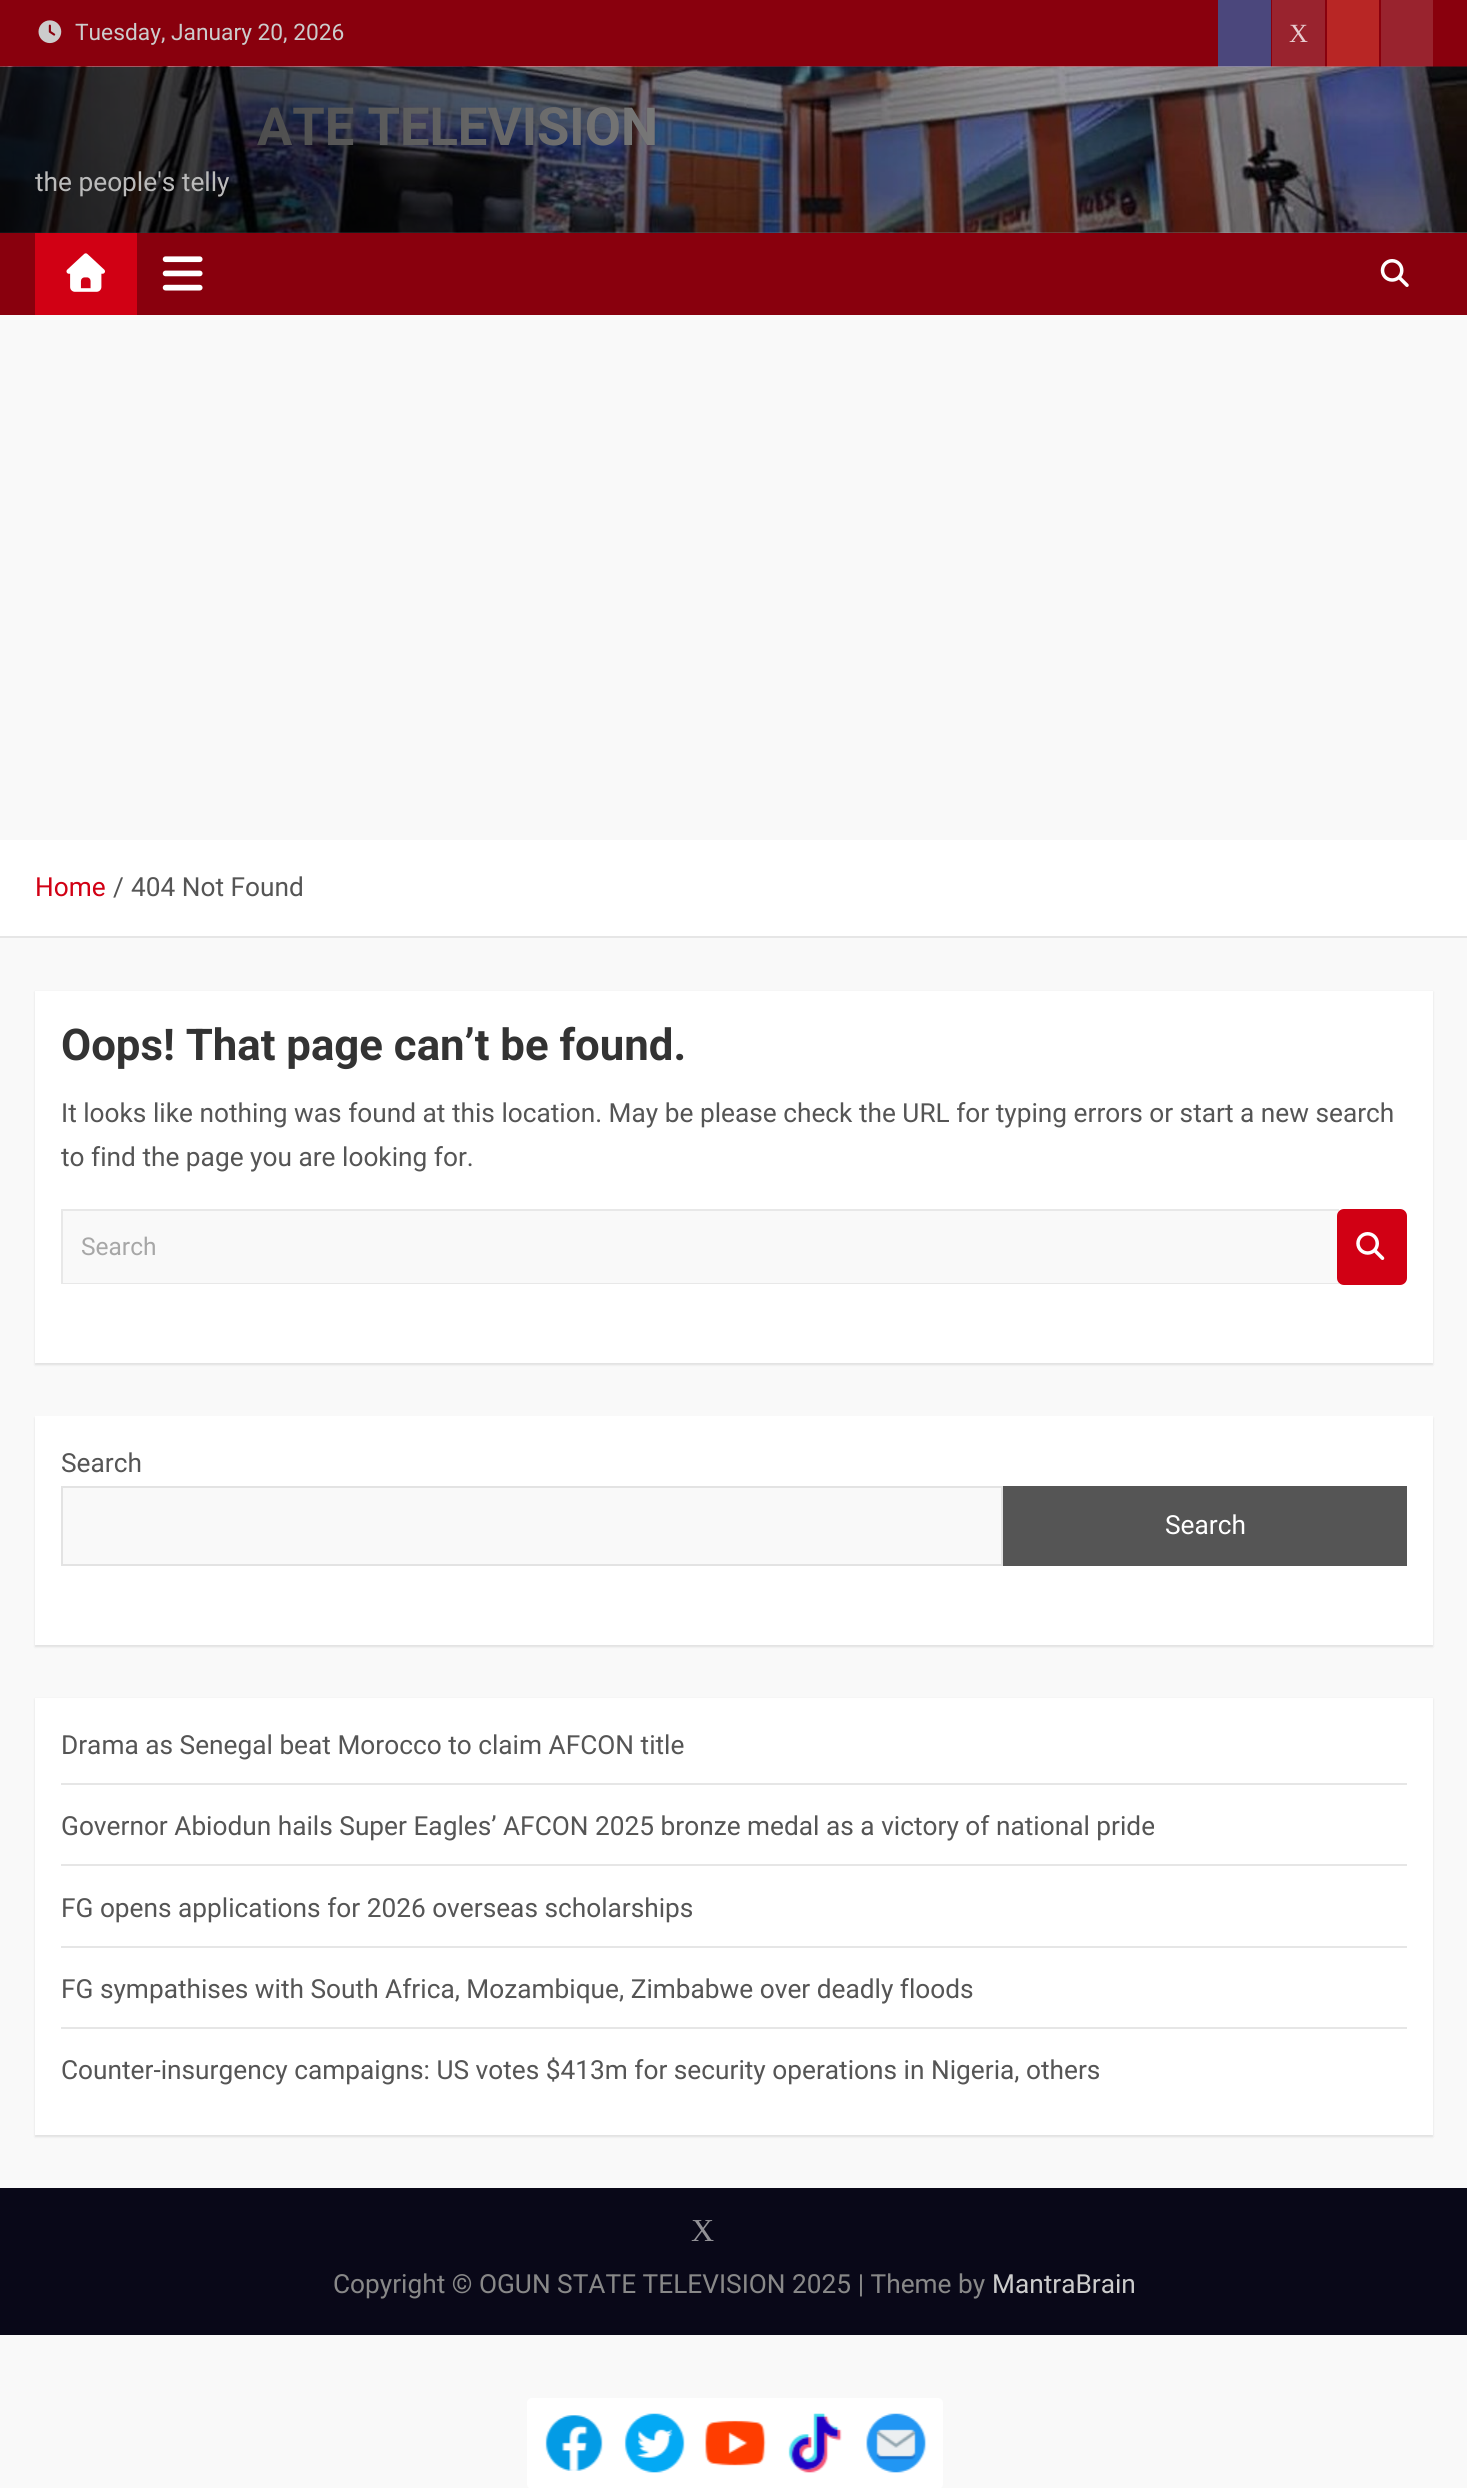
import math
import cairo

surface = cairo.ImageSurface(cairo.FORMAT_RGB24, 1467, 2488)
cr = cairo.Context(surface)
options = cairo.FontOptions()
options.set_hint_metrics(cairo.HINT_METRICS_OFF)
options.set_hint_style(cairo.HINT_STYLE_NONE)
cr.set_font_options(options)
cr.set_miter_limit(4)


def rgb(code):
    cr.set_source_rgb(*(v / 255 for v in bytes.fromhex(code[-6:])))


def rrect(x, y, w, h, r):
    cr.new_sub_path()
    for i, (u, v) in enumerate([(x + w - r, y + h - r), (x + r, y + h - r), (x + r, y + r), (x + w - r, y + r)]):
        cr.arc(u, v, r, i * math.pi / 2, (i + 1) * math.pi / 2)
    cr.close_path()


def soft_shadow(x, y, w, h, r, blur, alpha):
    cr.push_group_with_content(cairo.CONTENT_ALPHA)
    cr.set_operator(cairo.OPERATOR_SOURCE)
    for i in range(15, -16, -2):
        e = blur * i / 6
        if min(w, h) + 2 * e > 0:
            cr.set_source_rgba(0, 0, 0, alpha * math.erfc((i - 1) / 8.5) / 2)
            rrect(x - e, y - e, w + 2 * e, h + 2 * e, max(0, min(r + e + blur * .6, min(w, h) / 2 + e)))
            cr.fill()
    cr.mask(cr.pop_group())


def image(path, x, y, w, h):
    cr.save()
    cr.set_source_surface(cairo.ImageSurface.create_from_png(path), x, y)
    cr.rectangle(x, y, w, h)
    cr.fill()
    cr.restore()


rgb("#f9f9f9")
cr.paint()
rgb("#89000d")
cr.rectangle(0, 0, 1467, 67)
cr.fill()
image("img/1.png", 38, 20, 24, 24)
for x, y, w, h, color in [
    (1218, 0, 53, 67, "#4b477c"),
    (1272, 0, 53, 67, "#99232e"),
    (1327, 0, 52, 67, "#b82625"),
    (1381, 0, 52, 67, "#99232e"),
]:
    rgb(color)
    cr.rectangle(x, y, w, h)
    cr.fill()
image("img/2.png", 0, 66, 1467, 167)
rgb("#89000d")
cr.rectangle(0, 233, 1467, 82)
cr.fill()
rgb("#d10014")
cr.rectangle(35, 233, 102, 82)
cr.fill()
image("img/3.png", 66, 253, 39, 39)
image("img/4.png", 162, 256, 41, 35)
image("img/5.png", 1380, 259, 29, 28)
rgb("#ffffff")
cr.rectangle(0, 840, 1467, 96)
cr.fill()
rgb("#e6e6e6")
cr.rectangle(0, 936, 1467, 2)
cr.fill()
rgb("#000000")
soft_shadow(35, 992, 1398, 373, 0, 1, 0.1)
rgb("#ffffff")
cr.rectangle(35, 991, 1398, 372)
cr.fill()
rgb("#f9f9f9")
cr.rectangle(63, 1211, 1276, 72)
cr.fill()
rgb("#e8e8e8")
cr.new_path()
cr.move_to(61, 1209)
cr.line_to(1339, 1209)
cr.line_to(1339, 1211)
cr.line_to(63, 1211)
cr.close_path()
cr.fill()
cr.new_path()
cr.move_to(1339, 1284)
cr.line_to(61, 1284)
cr.line_to(63, 1283)
cr.line_to(1339, 1283)
cr.close_path()
cr.fill()
cr.set_source_rgba(0, 0, 0, 0.09)
cr.new_path()
cr.move_to(61, 1284)
cr.line_to(61, 1209)
cr.line_to(63, 1211)
cr.line_to(63, 1283)
cr.close_path()
cr.fill()
rgb("#d10014")
rrect(1337, 1209, 70, 76, 7)
cr.fill()
image("img/6.png", 1356, 1232, 29, 28)
rgb("#000000")
soft_shadow(35, 1418, 1398, 229, 0, 1, 0.1)
rgb("#ffffff")
cr.rectangle(35, 1416, 1398, 229)
cr.fill()
rgb("#f9f9f9")
cr.rectangle(62, 1487, 940, 78)
cr.fill_preserve()
rgb("#e3e3e3")
cr.stroke()
rgb("#555555")
cr.rectangle(1003, 1486, 404, 80)
cr.fill()
rgb("#000000")
soft_shadow(35, 1699, 1398, 438, 0, 1, 0.1)
for x, y, w, h, color in [
    (35, 1698, 1398, 437, "#ffffff"),
    (61, 1783, 1346, 2, "#e6e6e6"),
    (61, 1864, 1346, 2, "#e6e6e6"),
    (61, 1946, 1346, 2, "#e6e6e6"),
    (61, 2027, 1346, 2, "#e6e6e6"),
    (0, 2188, 1467, 147, "#090818"),
]:
    rgb(color)
    cr.rectangle(x, y, w, h)
    cr.fill()
rgb("#ffffff")
rrect(527, 2398, 416, 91, 5)
cr.fill()
image("img/7.png", 545, 2415, 58, 56)
image("img/8.png", 624, 2413, 61, 60)
image("img/9.png", 705, 2420, 61, 46)
image("img/10.png", 788, 2413, 54, 60)
image("img/11.png", 866, 2413, 61, 60)
cr.select_font_face("Roboto")
cr.set_font_size(22.75)
rgb("#cccccc")
cr.move_to(75, 40)
cr.show_text("Tuesday, January 20, 2026")
cr.select_font_face("Liberation Serif")
cr.set_font_size(26.25)
rgb("#e7cccf")
cr.move_to(1289, 42)
cr.show_text("X")
cr.select_font_face("Roboto", cairo.FONT_SLANT_NORMAL, cairo.FONT_WEIGHT_BOLD)
cr.set_font_size(52.5)
rgb("#ffffff")
cr.move_to(257, 145)
cr.show_text("ATE TELEVISION")
gradient = cairo.LinearGradient(0, 150, 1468, 150)
gradient.add_color_stop_rgba(0, 0, 0, 0, 0.8)
gradient.add_color_stop_rgba(1, 0, 0, 0, 0.2)
cr.set_source(gradient)
cr.rectangle(0, 67, 1467, 166)
cr.fill()
cr.select_font_face("Roboto")
cr.set_font_size(26.25)
rgb("#bbbbbb")
cr.move_to(35, 191)
cr.show_text("the people's telly")
rgb("#d10014")
cr.move_to(35, 896)
cr.show_text("Home")
rgb("#555555")
cr.move_to(113, 896)
cr.show_text("/")
cr.move_to(131, 896)
cr.show_text("404 Not Found")
cr.select_font_face("Roboto", cairo.FONT_SLANT_NORMAL, cairo.FONT_WEIGHT_BOLD)
cr.set_font_size(43.75)
rgb("#333333")
cr.move_to(61, 1060)
cr.show_text("Oops! That page can’t be found.")
cr.select_font_face("Roboto")
cr.set_font_size(26.25)
rgb("#555555")
cr.move_to(61, 1122)
cr.show_text("It looks like nothing was found at this location. May be please check the URL for typing errors or start a new search")
cr.move_to(61, 1166)
cr.show_text("to find the page you are looking for.")
cr.set_font_size(24.5)
rgb("#a7a7a7")
cr.move_to(81, 1255)
cr.show_text("Search")
cr.set_font_size(26.25)
rgb("#555555")
cr.move_to(61, 1472)
cr.show_text("Search")
rgb("#ffffff")
cr.move_to(1165, 1534)
cr.show_text("Search")
rgb("#555555")
for x, y, s in [
    (61, 1754, "Drama as Senegal beat Morocco to claim AFCON title"),
    (61, 1835, "Governor Abiodun hails Super Eagles’ AFCON 2025 bronze medal as a victory of national pride"),
    (61, 1917, "FG opens applications for 2026 overseas scholarships"),
    (61, 1998, "FG sympathises with South Africa, Mozambique, Zimbabwe over deadly floods"),
    (61, 2079, "Counter-insurgency campaigns: US votes $413m for security operations in Nigeria, others"),
]:
    cr.move_to(x, y)
    cr.show_text(s)
cr.select_font_face("Liberation Serif")
cr.set_font_size(32)
rgb("#929196")
cr.move_to(691, 2241)
cr.show_text("X")
cr.select_font_face("Roboto")
cr.set_font_size(26.25)
rgb("#888888")
cr.move_to(333, 2293)
cr.show_text("Copyright © OGUN STATE TELEVISION 2025 | Theme by")
rgb("#cccccc")
cr.move_to(992, 2293)
cr.show_text("MantraBrain")
surface.write_to_png("page.png")
